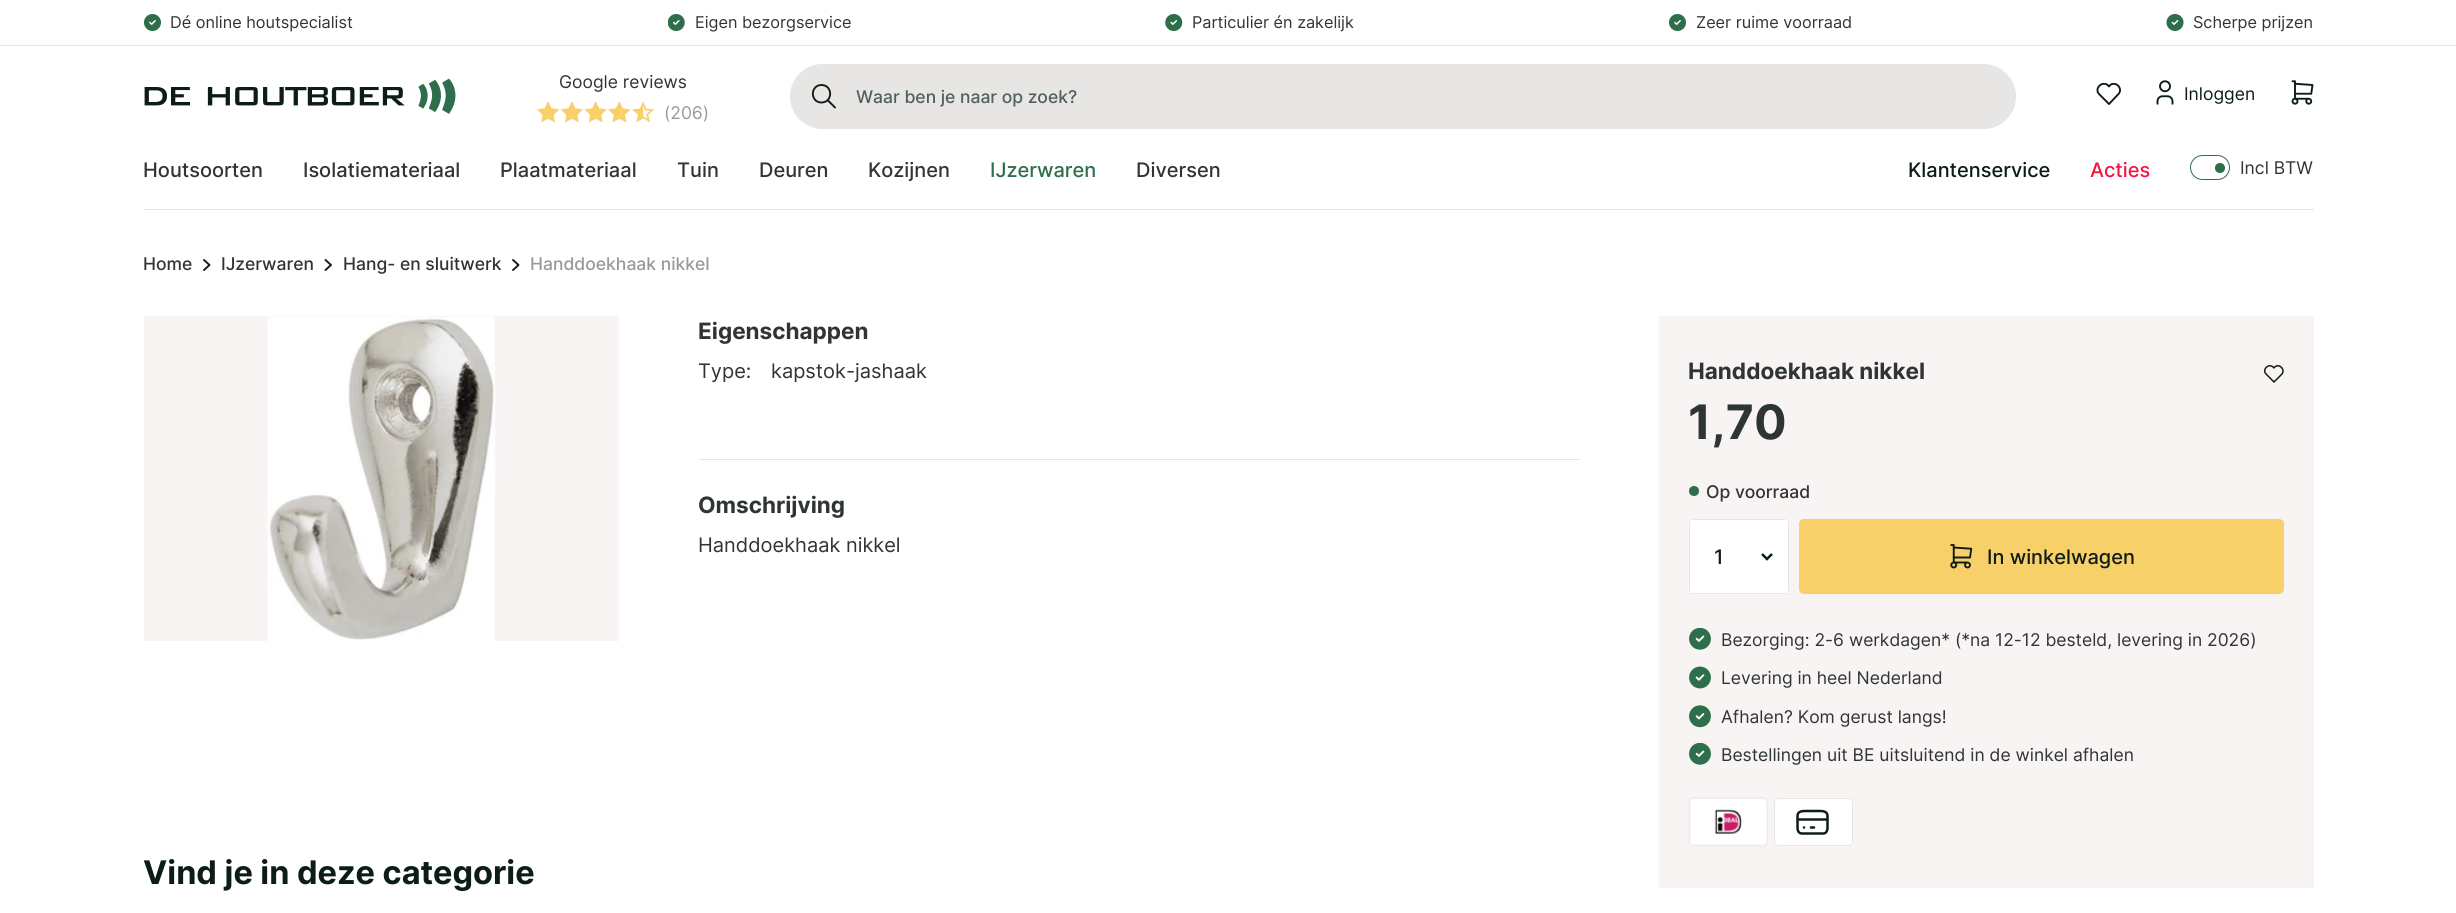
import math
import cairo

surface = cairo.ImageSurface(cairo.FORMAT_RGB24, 2456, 913)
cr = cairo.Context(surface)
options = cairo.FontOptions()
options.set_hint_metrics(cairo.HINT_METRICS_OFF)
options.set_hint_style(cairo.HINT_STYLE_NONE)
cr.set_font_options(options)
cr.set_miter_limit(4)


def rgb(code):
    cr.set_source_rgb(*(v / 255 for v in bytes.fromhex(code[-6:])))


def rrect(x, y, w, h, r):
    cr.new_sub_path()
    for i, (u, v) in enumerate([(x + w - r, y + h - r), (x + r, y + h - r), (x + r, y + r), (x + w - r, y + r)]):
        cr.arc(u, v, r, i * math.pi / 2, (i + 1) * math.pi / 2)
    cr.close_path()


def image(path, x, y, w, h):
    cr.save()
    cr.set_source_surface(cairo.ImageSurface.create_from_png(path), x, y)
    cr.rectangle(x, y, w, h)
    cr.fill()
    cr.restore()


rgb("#ffffff")
cr.paint()
rgb("#e8e5e5")
cr.rectangle(0, 45, 2456, 1)
cr.fill()
image("img/1.png", 144, 14, 17, 17)
image("img/2.png", 668, 14, 17, 17)
image("img/3.png", 1165, 14, 18, 17)
image("img/1.png", 1669, 14, 17, 17)
image("img/4.png", 2166, 14, 18, 17)
image("img/5.png", 144, 78, 312, 36)
image("img/6.png", 537, 101, 23, 22)
image("img/7.png", 560, 101, 23, 22)
image("img/8.png", 584, 101, 23, 22)
image("img/9.png", 608, 101, 23, 22)
image("img/10.png", 632, 101, 23, 22)
rrect(790.5, 64.5, 1225, 64, 32)
cr.fill_preserve()
cr.set_line_width(1)
cr.stroke()
cr.new_path()
cr.move_to(821.5, 102.5)
cr.curve_to(833, 102.5, 833, 85, 821.5, 85)
cr.curve_to(810, 85, 810, 102.5, 821.5, 102.5)
cr.close_path()
cr.move_to(835, 107.5)
cr.line_to(827.5, 100)
rgb("#0c1d15")
cr.set_line_width(1.9)
cr.set_line_cap(cairo.LINE_CAP_ROUND)
cr.set_line_join(cairo.LINE_JOIN_ROUND)
cr.stroke()
cr.save()
cr.rectangle(2096, 83, 25, 22)
cr.clip()
cr.new_path()
cr.move_to(2118, 94.5)
cr.line_to(2109, 104)
cr.line_to(2099.5, 94.5)
cr.move_to(2099.5, 94.5)
cr.curve_to(2093, 88.5, 2103.5, 79, 2109, 86.5)
cr.curve_to(2114, 79, 2124.5, 88.5, 2118, 94.5)
cr.stroke()
cr.restore()
image("img/11.png", 2156, 80, 18, 25)
image("img/12.png", 2291, 80, 23, 25)
rrect(2190.5, 155.5, 39, 24, 12)
rgb("#2e6e4a")
cr.set_line_width(1)
cr.set_line_cap(cairo.LINE_CAP_BUTT)
cr.set_line_join(cairo.LINE_JOIN_MITER)
cr.stroke()
cr.arc(2220, 168, 5, 0, 2 * math.pi)
cr.fill()
rgb("#e8e5e5")
cr.rectangle(144, 209, 2170, 1)
cr.fill()
cr.new_path()
cr.move_to(204, 260)
cr.line_to(209.5, 265)
cr.line_to(204, 270)
rgb("#0c1d15")
cr.set_line_width(1.9)
cr.set_line_cap(cairo.LINE_CAP_ROUND)
cr.set_line_join(cairo.LINE_JOIN_ROUND)
cr.stroke()
cr.new_path()
cr.move_to(325.5, 260)
cr.line_to(331, 265)
cr.line_to(325.5, 270)
cr.stroke()
cr.new_path()
cr.move_to(513, 260)
cr.line_to(518.5, 265)
cr.line_to(513, 270)
cr.stroke()
rgb("#f7f4f3")
cr.rectangle(144, 316, 475, 325)
cr.fill()
image("img/13.png", 267, 316, 230, 325)
rgb("#e8e5e5")
cr.rectangle(699, 459, 880, 1)
cr.fill()
rgb("#f7f4f3")
cr.rectangle(1659, 316, 655, 572)
cr.fill()
cr.new_path()
cr.move_to(2281.5, 374.5)
cr.line_to(2274, 382)
cr.line_to(2266.5, 374.5)
cr.move_to(2266.5, 374.5)
cr.curve_to(2261, 369.5, 2269.5, 362, 2274, 368)
cr.curve_to(2278, 362, 2286.5, 369.5, 2281.5, 374.5)
rgb("#0c1d15")
cr.set_line_width(1.5)
cr.stroke()
rgb("#2e6e4a")
cr.arc(1694, 491, 5, 0, 2 * math.pi)
cr.fill()
rrect(1689.5, 519.5, 99, 74, 4.5)
rgb("#e8e5e5")
cr.set_line_width(1)
cr.set_line_cap(cairo.LINE_CAP_BUTT)
cr.set_line_join(cairo.LINE_JOIN_MITER)
cr.stroke()
rgb("#ffffff")
cr.rectangle(1690, 520, 98, 73)
cr.fill()
cr.new_path()
cr.move_to(1762, 554)
cr.line_to(1767, 559)
cr.line_to(1772, 554)
rgb("#0c1d15")
cr.set_line_width(2.5)
cr.stroke()
rgb("#f8d06a")
rrect(1799, 519, 485, 75, 5)
cr.fill()
image("img/14.png", 1950, 544, 23, 25)
image("img/15.png", 1689, 628, 22, 22)
image("img/16.png", 1689, 666, 22, 23)
image("img/17.png", 1689, 705, 22, 23)
image("img/15.png", 1689, 743, 22, 22)
image("img/18.png", 1688, 797, 80, 50)
rgb("#ffffff")
rrect(1774.5, 798.5, 78, 47, 4.5)
cr.fill_preserve()
rgb("#e8e5e5")
cr.set_line_width(1)
cr.stroke()
cr.new_path()
cr.move_to(1797.5, 819.5)
cr.line_to(1827.5, 819.5)
cr.move_to(1804, 827.5)
cr.line_to(1804, 827.5)
cr.move_to(1811, 827.5)
cr.line_to(1814, 827.5)
cr.move_to(1797.5, 816)
cr.curve_to(1797.5, 811, 1802.5, 811, 1806, 811)
cr.line_to(1819, 811)
cr.curve_to(1822.5, 811, 1827.5, 811, 1827.5, 816)
cr.line_to(1827.5, 824.5)
cr.curve_to(1827.5, 828, 1828, 833, 1823.5, 833.5)
cr.line_to(1801.5, 833.5)
cr.curve_to(1797, 833, 1797.5, 828, 1797.5, 824.5)
cr.close_path()
rgb("#0c1d15")
cr.set_line_width(2.5)
cr.set_line_cap(cairo.LINE_CAP_ROUND)
cr.set_line_join(cairo.LINE_JOIN_ROUND)
cr.stroke()
cr.select_font_face("Inter")
cr.set_font_size(16.25)
rgb("#2f3532")
for x, y, s in [
    (170, 28, "Dé online houtspecialist"),
    (695, 28, "Eigen bezorgservice"),
    (1192, 28, "Particulier én zakelijk"),
    (1696, 28, "Zeer ruime voorraad"),
    (2193, 28, "Scherpe prijzen"),
]:
    cr.move_to(x, y)
    cr.show_text(s)
cr.set_font_size(17.5)
cr.move_to(559, 88)
cr.show_text("Google reviews")
rgb("#999999")
cr.move_to(664, 119)
cr.show_text("(206)")
cr.select_font_face("Inter Medium")
rgb("#506159")
cr.move_to(856, 103)
cr.show_text("Waar ben je naar op zoek?")
cr.select_font_face("Inter")
rgb("#0c1d15")
cr.move_to(2184, 100)
cr.show_text("Inloggen")
cr.select_font_face("Inter Medium")
cr.set_font_size(20)
rgb("#2f3532")
for x, y, s in [
    (143, 177, "Houtsoorten"),
    (303, 177, "Isolatiemateriaal"),
    (500, 177, "Plaatmateriaal"),
    (677, 177, "Tuin"),
    (759, 177, "Deuren"),
    (868, 177, "Kozijnen"),
]:
    cr.move_to(x, y)
    cr.show_text(s)
rgb("#2e6e4a")
cr.move_to(990, 177)
cr.show_text("IJzerwaren")
rgb("#2f3532")
cr.move_to(1136, 177)
cr.show_text("Diversen")
rgb("#0c1d15")
cr.move_to(1908, 177)
cr.show_text("Klantenservice")
rgb("#f41542")
cr.move_to(2090, 177)
cr.show_text("Acties")
cr.select_font_face("Inter")
cr.set_font_size(17.5)
rgb("#2f3532")
cr.move_to(2240, 174)
cr.show_text("Incl BTW")
cr.select_font_face("Inter Medium")
for x, y, s in [
    (143, 270, "Home"),
    (221, 270, "IJzerwaren"),
    (343, 270, "Hang- en sluitwerk"),
]:
    cr.move_to(x, y)
    cr.show_text(s)
rgb("#999999")
cr.move_to(530, 270)
cr.show_text("Handdoekhaak nikkel")
cr.select_font_face("Inter", cairo.FONT_SLANT_NORMAL, cairo.FONT_WEIGHT_BOLD)
cr.set_font_size(22.5)
rgb("#2f3532")
cr.move_to(698, 339)
cr.show_text("Eigenschappen")
cr.select_font_face("Inter")
cr.set_font_size(20)
cr.move_to(698, 378)
cr.show_text("Type:")
cr.move_to(771, 378)
cr.show_text("kapstok-jashaak")
cr.select_font_face("Inter", cairo.FONT_SLANT_NORMAL, cairo.FONT_WEIGHT_BOLD)
cr.set_font_size(22.5)
cr.move_to(698, 513)
cr.show_text("Omschrijving")
cr.select_font_face("Inter")
cr.set_font_size(20)
cr.move_to(698, 552)
cr.show_text("Handdoekhaak nikkel")
cr.select_font_face("Inter", cairo.FONT_SLANT_NORMAL, cairo.FONT_WEIGHT_BOLD)
cr.set_font_size(22.5)
cr.move_to(1688, 379)
cr.show_text("Handdoekhaak nikkel")
cr.set_font_size(47.5)
cr.move_to(1688, 439)
cr.show_text("1,70")
cr.select_font_face("Inter Medium")
cr.set_font_size(17.5)
cr.move_to(1706, 498)
cr.show_text("Op voorraad")
cr.set_font_size(20)
rgb("#0c1d15")
cr.move_to(1714, 564)
cr.show_text("1")
cr.move_to(1987, 564)
cr.show_text("In winkelwagen")
cr.select_font_face("Inter")
cr.set_font_size(17.5)
rgb("#2f3532")
for x, y, s in [
    (1721, 646, "Bezorging: 2-6 werkdagen* (*na 12-12 besteld, levering in 2026)"),
    (1721, 684, "Levering in heel Nederland"),
    (1721, 723, "Afhalen? Kom gerust langs!"),
    (1721, 761, "Bestellingen uit BE uitsluitend in de winkel afhalen"),
]:
    cr.move_to(x, y)
    cr.show_text(s)
cr.select_font_face("Inter", cairo.FONT_SLANT_NORMAL, cairo.FONT_WEIGHT_BOLD)
cr.set_font_size(32.5)
rgb("#0c1d15")
cr.move_to(143, 884)
cr.show_text("Vind je in deze categorie")
surface.write_to_png("page.png")
